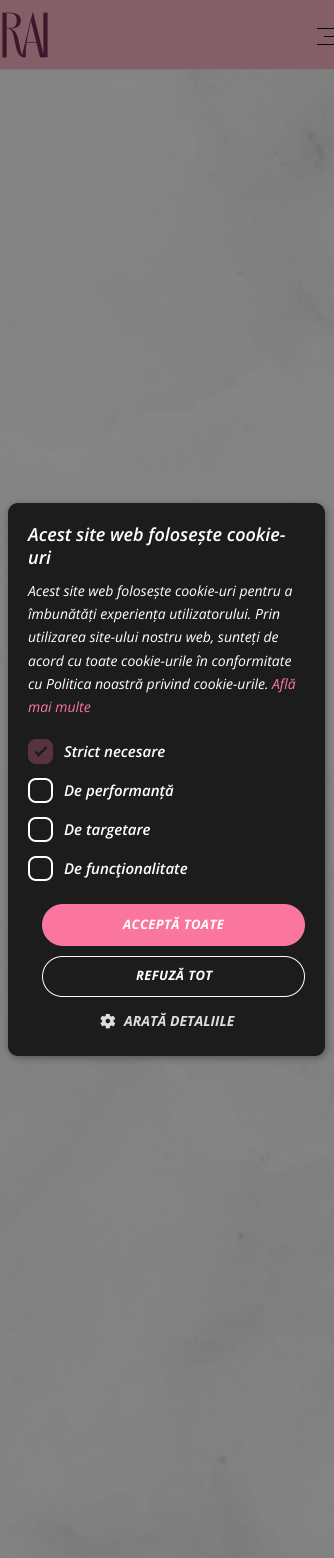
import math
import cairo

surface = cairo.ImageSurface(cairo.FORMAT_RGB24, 334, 1558)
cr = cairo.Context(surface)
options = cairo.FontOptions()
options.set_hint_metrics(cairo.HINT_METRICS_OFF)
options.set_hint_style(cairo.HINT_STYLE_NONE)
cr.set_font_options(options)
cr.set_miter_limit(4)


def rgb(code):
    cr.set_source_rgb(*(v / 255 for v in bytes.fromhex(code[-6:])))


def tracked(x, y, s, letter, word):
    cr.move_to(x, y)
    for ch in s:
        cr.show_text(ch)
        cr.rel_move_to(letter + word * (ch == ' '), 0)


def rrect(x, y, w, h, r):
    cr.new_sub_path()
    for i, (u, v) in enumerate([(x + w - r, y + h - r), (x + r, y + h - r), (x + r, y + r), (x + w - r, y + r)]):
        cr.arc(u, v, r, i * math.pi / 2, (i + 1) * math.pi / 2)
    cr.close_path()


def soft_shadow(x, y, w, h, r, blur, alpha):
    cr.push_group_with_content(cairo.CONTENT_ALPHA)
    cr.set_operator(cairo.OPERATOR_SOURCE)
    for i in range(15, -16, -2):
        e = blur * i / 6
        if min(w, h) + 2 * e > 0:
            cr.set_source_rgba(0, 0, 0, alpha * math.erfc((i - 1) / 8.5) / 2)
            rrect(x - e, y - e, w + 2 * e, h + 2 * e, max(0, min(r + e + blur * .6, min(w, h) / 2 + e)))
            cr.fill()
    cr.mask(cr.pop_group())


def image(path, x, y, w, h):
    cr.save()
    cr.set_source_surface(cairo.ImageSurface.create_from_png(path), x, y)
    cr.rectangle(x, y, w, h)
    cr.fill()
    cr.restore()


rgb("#ffffff")
cr.paint()
rgb("#845f68")
cr.rectangle(0, 0, 334, 69)
cr.fill()
rgb("#7a7a7a")
cr.rectangle(0, 69, 334, 1)
cr.fill()
image("img/1.png", 2, 12, 46, 46)
for x, y, w, h, color in [
    (317, 28, 17, 1, "#090909"),
    (317, 44, 17, 1, "#090909"),
    (324, 36, 10, 1, "#090909"),
]:
    rgb(color)
    cr.rectangle(x, y, w, h)
    cr.fill()
image("img/2.png", 0, 70, 334, 1488)
rgb("#000000")
soft_shadow(9, 505, 317, 553, 10, 4, 0.35)
rgb("#1c1c1c")
rrect(8, 503, 317, 553, 10)
cr.fill()
rgb("#56333e")
rrect(28, 739, 25, 25, 8)
cr.fill()
cr.new_path()
cr.move_to(35.5, 751.5)
cr.line_to(38.5, 755)
cr.line_to(46.5, 747)
rgb("#1c1c1c")
cr.set_line_width(2.6)
cr.stroke()
rrect(29, 779, 23, 23, 7)
rgb("#ffffff")
cr.set_line_width(2)
cr.stroke()
rrect(29, 818, 23, 23, 7)
cr.stroke()
rrect(29, 857, 23, 23, 7)
cr.stroke()
rgb("#fa769e")
rrect(42, 904, 263, 42, 21)
cr.fill()
rrect(42.5, 956.5, 262, 40, 20)
rgb("#ffffff")
cr.set_line_width(1)
cr.stroke()
image("img/3.png", 100, 1014, 15, 15)
cr.select_font_face("Open Sans SemiBold", cairo.FONT_SLANT_ITALIC)
cr.set_font_size(18)
cr.move_to(28, 541)
cr.show_text("Acest site web folosește cookie-")
cr.move_to(28, 564)
cr.show_text("uri")
cr.select_font_face("Open Sans", cairo.FONT_SLANT_ITALIC)
cr.set_font_size(14)
for x, y, s in [
    (28, 596, "Acest site web folosește cookie-uri pentru a"),
    (28, 619, "îmbunătăți experiența utilizatorului. Prin"),
    (28, 642, "utilizarea site-ului nostru web, sunteți de"),
    (28, 666, "acord cu toate cookie-urile în conformitate"),
    (28, 689, "cu Politica noastră privind cookie-urile."),
]:
    cr.move_to(x, y)
    cr.show_text(s)
rgb("#fa769e")
cr.move_to(272, 689)
cr.show_text("Află")
cr.move_to(28, 712)
cr.show_text("mai multe")
cr.select_font_face("Open Sans SemiBold", cairo.FONT_SLANT_ITALIC)
cr.set_font_size(15)
rgb("#ffffff")
for x, y, s in [
    (64, 757, "Strict necesare"),
    (64, 796, "De performanță"),
    (64, 835, "De targetare"),
    (64, 874, "De funcţionalitate"),
]:
    cr.move_to(x, y)
    cr.show_text(s)
cr.select_font_face("Open Sans", cairo.FONT_SLANT_ITALIC, cairo.FONT_WEIGHT_BOLD)
cr.set_font_size(13)
tracked(123, 929, "ACCEPTĂ TOATE", 0.4, 0)
tracked(136, 980, "REFUZĂ TOT", 0.4, 0)
cr.set_font_size(14)
rgb("#dddddd")
cr.move_to(124, 1026)
cr.show_text("ARATĂ DETALIILE")
surface.write_to_png("page.png")
